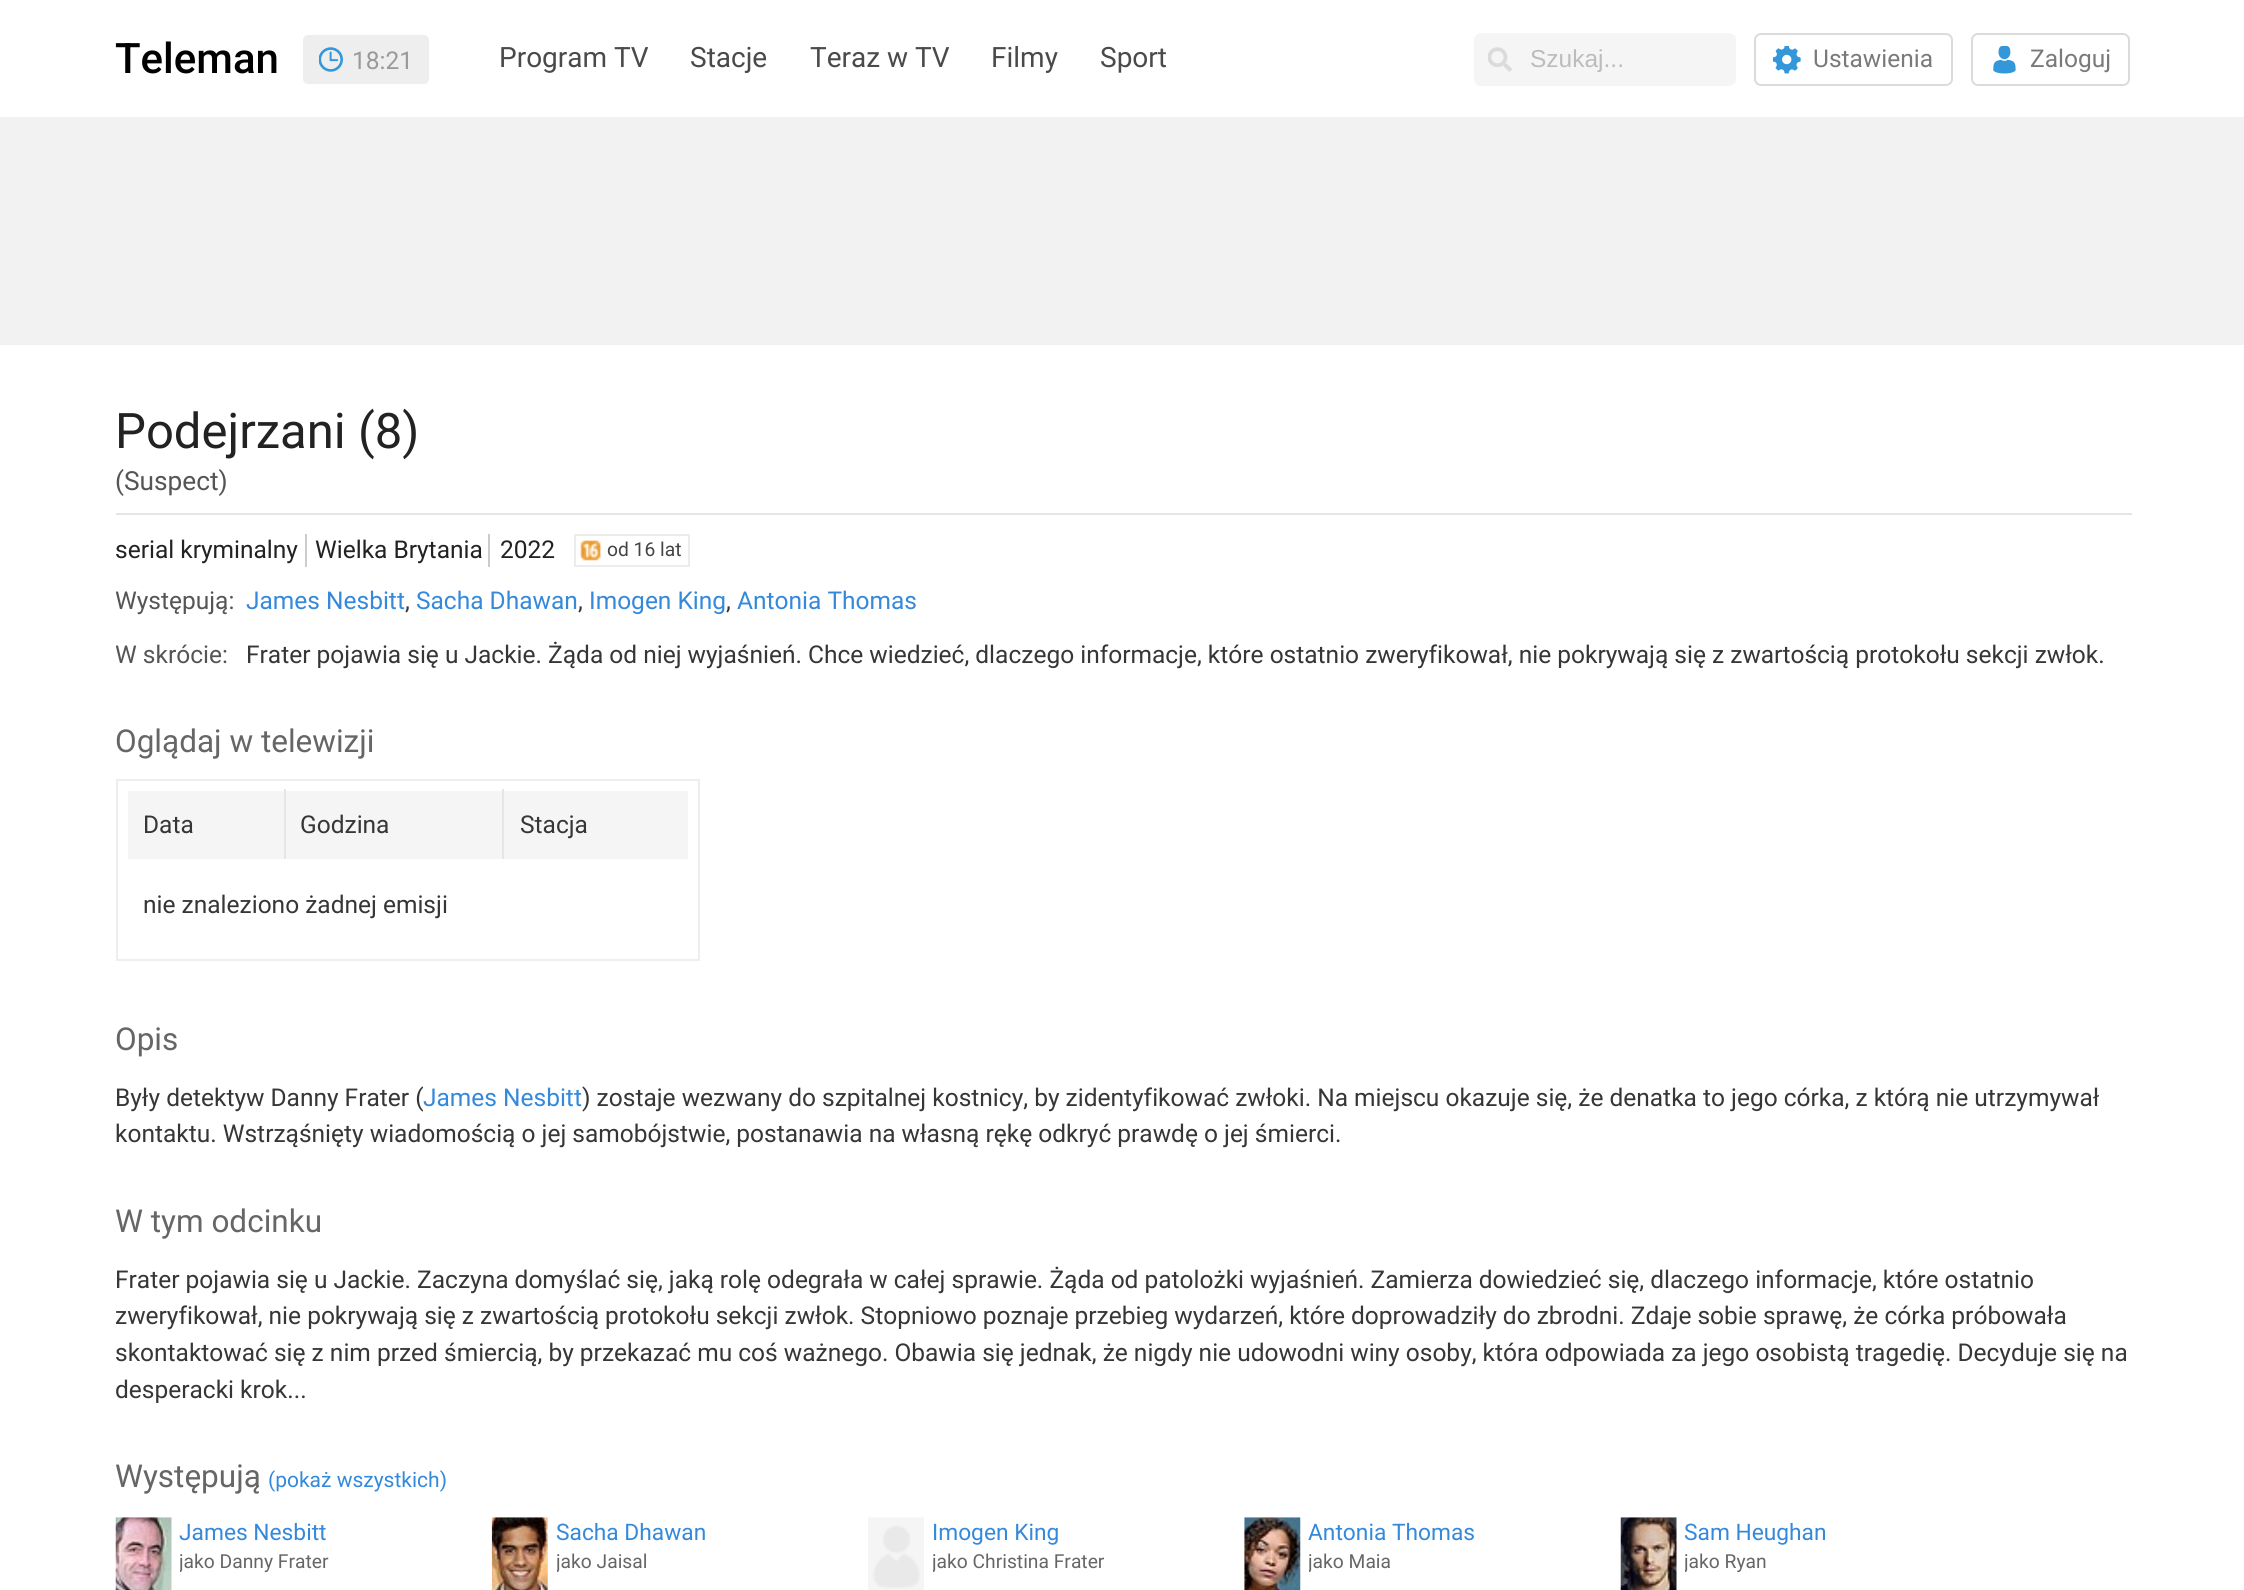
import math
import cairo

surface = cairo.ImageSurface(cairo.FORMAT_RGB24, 2244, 1590)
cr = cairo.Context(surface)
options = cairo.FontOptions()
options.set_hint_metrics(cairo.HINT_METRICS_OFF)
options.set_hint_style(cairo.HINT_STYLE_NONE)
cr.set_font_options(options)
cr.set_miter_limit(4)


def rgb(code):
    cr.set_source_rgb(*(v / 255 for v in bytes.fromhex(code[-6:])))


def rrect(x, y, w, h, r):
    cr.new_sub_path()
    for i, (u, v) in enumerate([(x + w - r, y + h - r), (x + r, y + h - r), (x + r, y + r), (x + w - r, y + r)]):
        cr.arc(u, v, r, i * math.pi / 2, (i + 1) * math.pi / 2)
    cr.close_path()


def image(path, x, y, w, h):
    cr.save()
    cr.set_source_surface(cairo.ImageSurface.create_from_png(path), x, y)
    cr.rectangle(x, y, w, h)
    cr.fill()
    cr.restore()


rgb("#ffffff")
cr.paint()
rgb("#eeeeee")
rrect(303, 35, 126, 49, 5)
cr.fill()
image("img/1.png", 319, 47, 24, 25)
rgb("#f5f5f5")
rrect(1474, 33, 262, 53, 7)
cr.fill()
image("img/2.png", 1488, 47, 24, 25)
rrect(1755, 34, 197, 51, 6)
rgb("#dbdbdb")
cr.stroke()
image("img/3.png", 1773, 46, 28, 28)
rrect(1972, 34, 157, 51, 6)
cr.stroke()
image("img/4.png", 1993, 46, 23, 28)
for x, y, w, h, color in [
    (0, 117, 2244, 228, "#f2f2f2"),
    (116, 513, 2016, 2, "#e5e5e5"),
    (305, 534, 2, 33, "#cccccc"),
    (488, 534, 2, 33, "#cccccc"),
]:
    rgb(color)
    cr.rectangle(x, y, w, h)
    cr.fill()
image("img/5.png", 580, 540, 21, 21)
cr.rectangle(575, 535, 114, 31)
rgb("#ececec")
cr.stroke()
cr.rectangle(117, 780, 582, 180)
rgb("#eeeeee")
cr.stroke()
for x, y, w, h, color in [
    (128, 791, 560, 68, "#f5f5f5"),
    (284, 789, 2, 70, "#e5e5e5"),
    (502, 789, 2, 70, "#e5e5e5"),
]:
    rgb(color)
    cr.rectangle(x, y, w, h)
    cr.fill()
image("img/6.png", 115, 1517, 57, 73)
image("img/7.png", 491, 1517, 57, 73)
image("img/8.png", 868, 1517, 56, 73)
image("img/9.png", 1244, 1517, 57, 73)
image("img/10.png", 1620, 1517, 57, 73)
cr.select_font_face("Roboto Medium")
cr.set_font_size(42)
rgb("#000000")
cr.move_to(115, 73)
cr.show_text("Teleman")
cr.select_font_face("Roboto")
cr.set_font_size(24.5)
rgb("#999999")
cr.move_to(352, 69)
cr.show_text("18:21")
cr.set_font_size(28)
rgb("#4a4a4a")
for x, y, s in [
    (499, 67, "Program TV"),
    (690, 67, "Stacje"),
    (810, 67, "Teraz w TV"),
    (991, 67, "Filmy"),
    (1100, 67, "Sport"),
]:
    cr.move_to(x, y)
    cr.show_text(s)
cr.select_font_face("Liberation Sans")
cr.set_font_size(24.5)
rgb("#bcbcbc")
cr.move_to(1530, 67)
cr.show_text("Szukaj...")
cr.select_font_face("Roboto")
rgb("#7a7a7a")
cr.move_to(1813, 67)
cr.show_text("Ustawienia")
cr.move_to(2030, 67)
cr.show_text("Zaloguj")
cr.set_font_size(49)
rgb("#222222")
cr.move_to(115, 448)
cr.show_text("Podejrzani (8)")
cr.set_font_size(26.25)
rgb("#555555")
cr.move_to(115, 490)
cr.show_text("(Suspect)")
cr.set_font_size(24.5)
rgb("#222222")
for x, y, s in [
    (115, 558, "serial kryminalny"),
    (315, 558, "Wielka Brytania"),
    (500, 558, "2022"),
]:
    cr.move_to(x, y)
    cr.show_text(s)
cr.set_font_size(19.25)
rgb("#444444")
cr.move_to(607, 556)
cr.show_text("od 16 lat")
cr.save()
cr.rectangle(116, 380, 2016, 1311)
cr.clip()
cr.set_font_size(24.5)
rgb("#555555")
cr.move_to(115, 609)
cr.show_text("Występują:")
cr.restore()
cr.set_font_size(24.5)
rgb("#3489db")
cr.move_to(246, 609)
cr.show_text("James Nesbitt")
rgb("#363636")
cr.move_to(405, 609)
cr.show_text(",")
rgb("#3489db")
cr.move_to(416, 609)
cr.show_text("Sacha Dhawan")
rgb("#363636")
cr.move_to(578, 609)
cr.show_text(",")
rgb("#3489db")
cr.move_to(589, 609)
cr.show_text("Imogen King")
rgb("#363636")
cr.move_to(726, 609)
cr.show_text(",")
rgb("#3489db")
cr.move_to(737, 609)
cr.show_text("Antonia Thomas")
cr.save()
cr.rectangle(116, 380, 2016, 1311)
cr.clip()
rgb("#555555")
cr.move_to(115, 663)
cr.show_text("W skrócie:")
cr.restore()
rgb("#363636")
cr.move_to(246, 663)
cr.show_text("Frater pojawia się u Jackie. Żąda od niej wyjaśnień. Chce wiedzieć, dlaczego informacje, które ostatnio zweryfikował, nie pokrywają się z zwartością protokołu sekcji zwłok.")
cr.set_font_size(31.5)
rgb("#666666")
cr.move_to(115, 752)
cr.show_text("Oglądaj w telewizji")
cr.set_font_size(24.5)
rgb("#363636")
for x, y, s in [
    (143, 833, "Data"),
    (300, 833, "Godzina"),
    (520, 833, "Stacja"),
    (143, 913, "nie znaleziono żadnej emisji"),
]:
    cr.move_to(x, y)
    cr.show_text(s)
cr.set_font_size(31.5)
rgb("#666666")
cr.move_to(115, 1050)
cr.show_text("Opis")
cr.set_font_size(24.5)
rgb("#363636")
cr.move_to(115, 1106)
cr.show_text("Były detektyw Danny Frater (")
rgb("#3489db")
cr.move_to(423, 1106)
cr.show_text("James Nesbitt")
rgb("#363636")
cr.move_to(582, 1106)
cr.show_text(") zostaje wezwany do szpitalnej kostnicy, by zidentyfikować zwłoki. Na miejscu okazuje się, że denatka to jego córka, z którą nie utrzymywał")
cr.move_to(115, 1142)
cr.show_text("kontaktu. Wstrząśnięty wiadomością o jej samobójstwie, postanawia na własną rękę odkryć prawdę o jej śmierci.")
cr.set_font_size(31.5)
rgb("#666666")
cr.move_to(115, 1232)
cr.show_text("W tym odcinku")
cr.set_font_size(24.5)
rgb("#363636")
cr.move_to(115, 1288)
cr.show_text("Frater pojawia się u Jackie. Zaczyna domyślać się, jaką rolę odegrała w całej sprawie. Żąda od patolożki wyjaśnień. Zamierza dowiedzieć się, dlaczego informacje, które ostatnio")
cr.save()
cr.rectangle(116, 380, 2016, 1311)
cr.clip()
cr.move_to(115, 1324)
cr.show_text("zweryfikował, nie pokrywają się z zwartością protokołu sekcji zwłok. Stopniowo poznaje przebieg wydarzeń, które doprowadziły do zbrodni. Zdaje sobie sprawę, że córka próbowała")
cr.restore()
cr.move_to(115, 1361)
cr.show_text("skontaktować się z nim przed śmiercią, by przekazać mu coś ważnego. Obawia się jednak, że nigdy nie udowodni winy osoby, która odpowiada za jego osobistą tragedię. Decyduje się na")
cr.save()
cr.rectangle(116, 380, 2016, 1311)
cr.clip()
cr.move_to(115, 1398)
cr.show_text("desperacki krok...")
cr.restore()
cr.set_font_size(31.5)
rgb("#666666")
cr.move_to(115, 1487)
cr.show_text("Występują")
cr.set_font_size(21)
rgb("#3489db")
cr.move_to(268, 1487)
cr.show_text("(pokaż wszystkich)")
cr.set_font_size(22.75)
cr.move_to(179, 1540)
cr.show_text("James Nesbitt")
cr.save()
cr.rectangle(180, 1547, 303, 30)
cr.clip()
cr.set_font_size(19.25)
rgb("#666666")
cr.move_to(179, 1568)
cr.show_text("jako Danny Frater")
cr.restore()
cr.move_to(556, 1540)
cr.show_text("Sacha Dhawan")
cr.save()
cr.rectangle(557, 1547, 302, 30)
cr.clip()
cr.set_font_size(19.25)
rgb("#666666")
cr.move_to(556, 1568)
cr.show_text("jako Jaisal")
cr.restore()
cr.move_to(932, 1540)
cr.show_text("Imogen King")
cr.save()
cr.rectangle(933, 1547, 303, 30)
cr.clip()
cr.set_font_size(19.25)
rgb("#666666")
cr.move_to(932, 1568)
cr.show_text("jako Christina Frater")
cr.restore()
cr.move_to(1308, 1540)
cr.show_text("Antonia Thomas")
cr.save()
cr.rectangle(1309, 1547, 303, 30)
cr.clip()
cr.set_font_size(19.25)
rgb("#666666")
cr.move_to(1308, 1568)
cr.show_text("jako Maia")
cr.restore()
cr.move_to(1684, 1540)
cr.show_text("Sam Heughan")
cr.save()
cr.rectangle(1685, 1547, 303, 30)
cr.clip()
cr.set_font_size(19.25)
rgb("#666666")
cr.move_to(1684, 1568)
cr.show_text("jako Ryan")
cr.restore()
surface.write_to_png("page.png")
